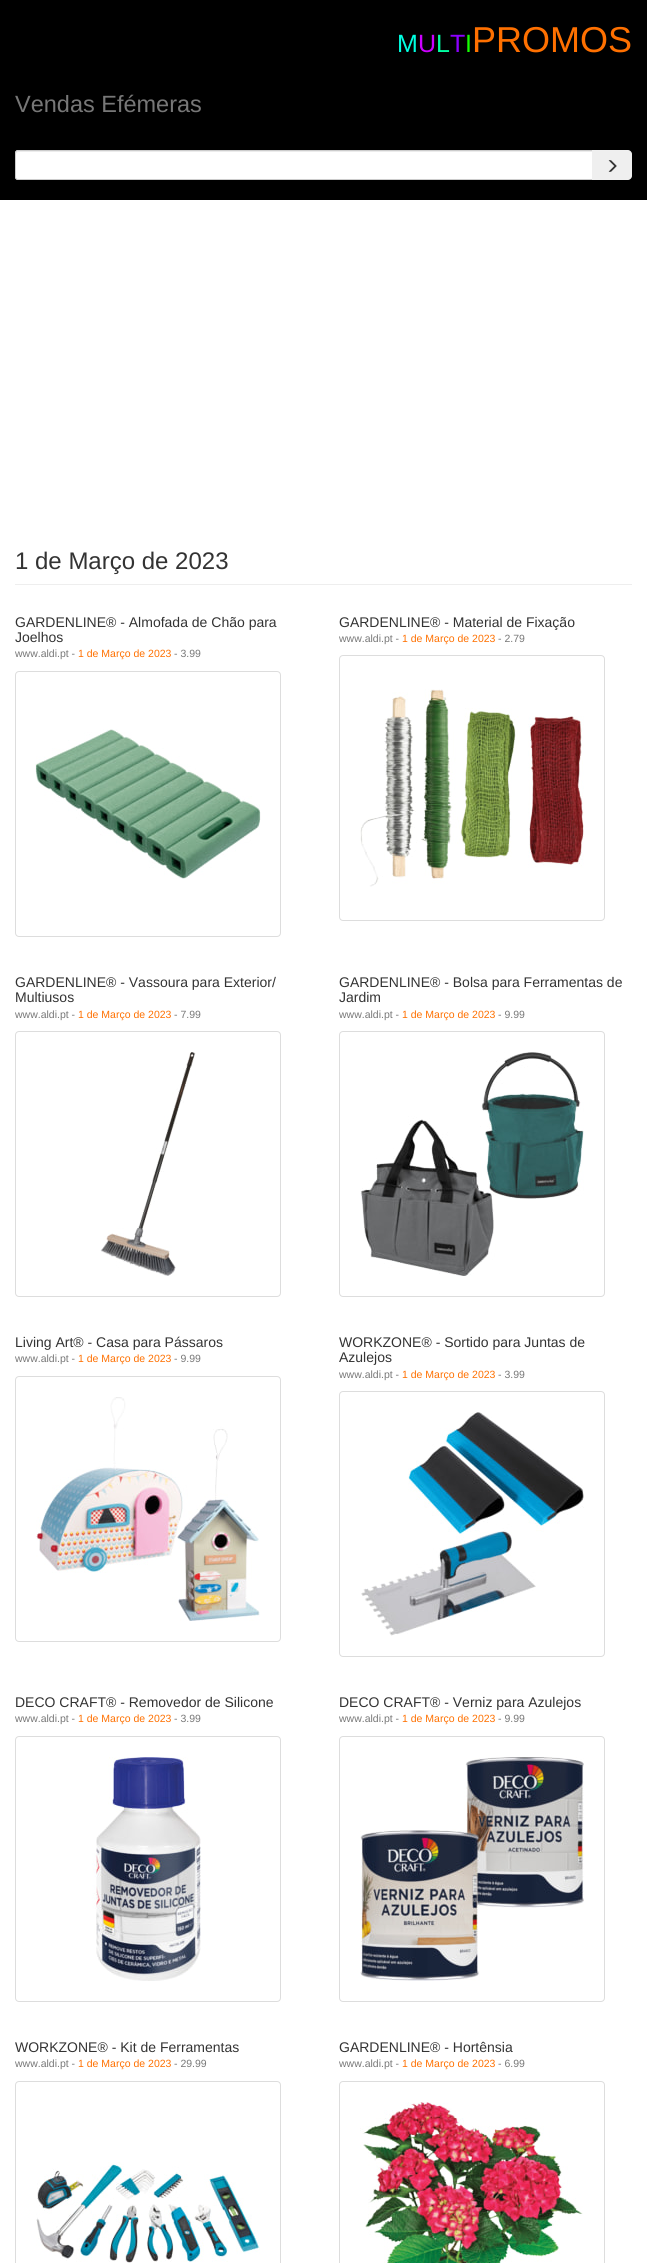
import math
import cairo

surface = cairo.ImageSurface(cairo.FORMAT_RGB24, 647, 2263)
cr = cairo.Context(surface)
options = cairo.FontOptions()
options.set_hint_metrics(cairo.HINT_METRICS_OFF)
options.set_hint_style(cairo.HINT_STYLE_NONE)
cr.set_font_options(options)
cr.set_miter_limit(4)


def rgb(code):
    cr.set_source_rgb(*(v / 255 for v in bytes.fromhex(code[-6:])))


def rrect(x, y, w, h, r):
    cr.new_sub_path()
    for i, (u, v) in enumerate([(x + w - r, y + h - r), (x + r, y + h - r), (x + r, y + r), (x + w - r, y + r)]):
        cr.arc(u, v, r, i * math.pi / 2, (i + 1) * math.pi / 2)
    cr.close_path()


def image(path, x, y, w, h):
    cr.save()
    cr.set_source_surface(cairo.ImageSurface.create_from_png(path), x, y)
    cr.rectangle(x, y, w, h)
    cr.fill()
    cr.restore()


rgb("#ffffff")
cr.paint()
rgb("#000000")
cr.rectangle(0, 0, 647, 200)
cr.fill()
rgb("#ffffff")
cr.new_path()
cr.move_to(18, 150)
cr.line_to(593, 150)
cr.line_to(593, 180)
cr.line_to(18, 180)
cr.curve_to(16.5, 180, 15, 178.5, 15, 177)
cr.line_to(15, 153)
cr.curve_to(15, 151.5, 16.5, 150, 18, 150)
cr.close_path()
cr.fill()
rgb("#ececec")
cr.new_path()
cr.move_to(18, 152)
cr.line_to(592, 152)
cr.line_to(592, 151)
cr.line_to(18, 151)
cr.line_to(16, 152)
cr.line_to(16, 154)
cr.curve_to(16, 153, 17, 152, 18, 152)
cr.close_path()
cr.fill()
cr.new_path()
cr.move_to(18, 150.5)
cr.line_to(592.5, 150.5)
cr.line_to(592.5, 179.5)
cr.line_to(18, 179.5)
cr.curve_to(16.5, 179.5, 15.5, 178.5, 15.5, 177)
cr.line_to(15.5, 153)
cr.curve_to(15.5, 151.5, 16.5, 150.5, 18, 150.5)
cr.close_path()
rgb("#cccccc")
cr.set_line_width(1)
cr.stroke()
rgb("#efefef")
cr.new_path()
cr.move_to(592, 150)
cr.line_to(628, 150)
cr.curve_to(630, 150, 632, 152, 632, 154)
cr.line_to(632, 176)
cr.curve_to(632, 178, 630, 180, 628, 180)
cr.line_to(592, 180)
cr.close_path()
cr.fill()
image("img/1.png", 608, 160, 9, 12)
rgb("#eeeeee")
cr.rectangle(15, 584, 617, 1)
cr.fill()
rrect(15.5, 671.5, 265, 265, 3.5)
rgb("#dddddd")
cr.stroke()
image("img/2.png", 35, 729, 226, 150)
rrect(339.5, 655.5, 265, 265, 3.5)
cr.stroke()
image("img/3.png", 360, 689, 224, 198)
rrect(15.5, 1031.5, 265, 265, 3.5)
cr.stroke()
image("img/4.png", 100, 1052, 96, 224)
rrect(339.5, 1031.5, 265, 265, 3.5)
cr.stroke()
image("img/5.png", 360, 1052, 224, 224)
rrect(15.5, 1376.5, 265, 265, 3.5)
cr.stroke()
image("img/6.png", 36, 1397, 224, 224)
rrect(339.5, 1391.5, 265, 265, 3.5)
cr.stroke()
image("img/7.png", 361, 1412, 223, 224)
rrect(15.5, 1736.5, 265, 265, 3.5)
cr.stroke()
image("img/8.png", 92, 1757, 109, 224)
rrect(339.5, 1736.5, 265, 265, 3.5)
cr.stroke()
image("img/9.png", 360, 1757, 224, 224)
rrect(15.5, 2081.5, 265, 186, 3.5)
cr.stroke()
image("img/10.png", 36, 2162, 224, 101)
rrect(339.5, 2081.5, 265, 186, 3.5)
cr.stroke()
image("img/11.png", 360, 2102, 223, 161)
cr.select_font_face("Liberation Sans")
cr.set_font_size(25)
rgb("#00ffe1")
cr.move_to(397, 52)
cr.show_text("M")
rgb("#cc00ff")
cr.move_to(418, 52)
cr.show_text("U")
rgb("#00ffa2")
cr.move_to(436, 52)
cr.show_text("L")
rgb("#8c00ff")
cr.move_to(450, 52)
cr.show_text("T")
rgb("#15ff00")
cr.move_to(465, 52)
cr.show_text("I")
cr.set_font_size(36)
rgb("#ff7000")
cr.move_to(472, 52)
cr.show_text("PROMOS")
cr.set_font_size(23.5)
rgb("#777777")
cr.move_to(15, 112)
cr.show_text("Vendas Efémeras")
cr.set_font_size(24)
rgb("#333333")
cr.move_to(15, 569)
cr.show_text("1 de Março de 2023")
cr.set_font_size(14)
cr.move_to(15, 627)
cr.show_text("GARDENLINE® - Almofada de Chão para")
cr.move_to(15, 642)
cr.show_text("Joelhos")
cr.set_font_size(10.5)
rgb("#777777")
cr.move_to(15, 657)
cr.show_text("www.aldi.pt -")
rgb("#ff7000")
cr.move_to(78, 657)
cr.show_text("1 de Março de 2023")
rgb("#777777")
cr.move_to(174, 657)
cr.show_text("- 3.99")
cr.set_font_size(14)
rgb("#333333")
cr.move_to(339, 627)
cr.show_text("GARDENLINE® - Material de Fixação")
cr.set_font_size(10.5)
rgb("#777777")
cr.move_to(339, 642)
cr.show_text("www.aldi.pt -")
rgb("#ff7000")
cr.move_to(402, 642)
cr.show_text("1 de Março de 2023")
rgb("#777777")
cr.move_to(498, 642)
cr.show_text("- 2.79")
cr.set_font_size(14)
rgb("#333333")
cr.move_to(15, 987)
cr.show_text("GARDENLINE® - Vassoura para Exterior/")
cr.move_to(15, 1002)
cr.show_text("Multiusos")
cr.set_font_size(10.5)
rgb("#777777")
cr.move_to(15, 1018)
cr.show_text("www.aldi.pt -")
rgb("#ff7000")
cr.move_to(78, 1018)
cr.show_text("1 de Março de 2023")
rgb("#777777")
cr.move_to(174, 1018)
cr.show_text("- 7.99")
cr.set_font_size(14)
rgb("#333333")
cr.move_to(339, 987)
cr.show_text("GARDENLINE® - Bolsa para Ferramentas de")
cr.move_to(339, 1002)
cr.show_text("Jardim")
cr.set_font_size(10.5)
rgb("#777777")
cr.move_to(339, 1018)
cr.show_text("www.aldi.pt -")
rgb("#ff7000")
cr.move_to(402, 1018)
cr.show_text("1 de Março de 2023")
rgb("#777777")
cr.move_to(498, 1018)
cr.show_text("- 9.99")
cr.set_font_size(14)
rgb("#333333")
cr.move_to(15, 1347)
cr.show_text("Living Art® - Casa para Pássaros")
cr.set_font_size(10.5)
rgb("#777777")
cr.move_to(15, 1362)
cr.show_text("www.aldi.pt -")
rgb("#ff7000")
cr.move_to(78, 1362)
cr.show_text("1 de Março de 2023")
rgb("#777777")
cr.move_to(174, 1362)
cr.show_text("- 9.99")
cr.set_font_size(14)
rgb("#333333")
cr.move_to(339, 1347)
cr.show_text("WORKZONE® - Sortido para Juntas de")
cr.move_to(339, 1362)
cr.show_text("Azulejos")
cr.set_font_size(10.5)
rgb("#777777")
cr.move_to(339, 1378)
cr.show_text("www.aldi.pt -")
rgb("#ff7000")
cr.move_to(402, 1378)
cr.show_text("1 de Março de 2023")
rgb("#777777")
cr.move_to(498, 1378)
cr.show_text("- 3.99")
cr.set_font_size(14)
rgb("#333333")
cr.move_to(15, 1707)
cr.show_text("DECO CRAFT® - Removedor de Silicone")
cr.set_font_size(10.5)
rgb("#777777")
cr.move_to(15, 1722)
cr.show_text("www.aldi.pt -")
rgb("#ff7000")
cr.move_to(78, 1722)
cr.show_text("1 de Março de 2023")
rgb("#777777")
cr.move_to(174, 1722)
cr.show_text("- 3.99")
cr.set_font_size(14)
rgb("#333333")
cr.move_to(339, 1707)
cr.show_text("DECO CRAFT® - Verniz para Azulejos")
cr.set_font_size(10.5)
rgb("#777777")
cr.move_to(339, 1722)
cr.show_text("www.aldi.pt -")
rgb("#ff7000")
cr.move_to(402, 1722)
cr.show_text("1 de Março de 2023")
rgb("#777777")
cr.move_to(498, 1722)
cr.show_text("- 9.99")
cr.set_font_size(14)
rgb("#333333")
cr.move_to(15, 2052)
cr.show_text("WORKZONE® - Kit de Ferramentas")
cr.set_font_size(10.5)
rgb("#777777")
cr.move_to(15, 2067)
cr.show_text("www.aldi.pt -")
rgb("#ff7000")
cr.move_to(78, 2067)
cr.show_text("1 de Março de 2023")
rgb("#777777")
cr.move_to(174, 2067)
cr.show_text("- 29.99")
cr.set_font_size(14)
rgb("#333333")
cr.move_to(339, 2052)
cr.show_text("GARDENLINE® - Hortênsia")
cr.set_font_size(10.5)
rgb("#777777")
cr.move_to(339, 2067)
cr.show_text("www.aldi.pt -")
rgb("#ff7000")
cr.move_to(402, 2067)
cr.show_text("1 de Março de 2023")
rgb("#777777")
cr.move_to(498, 2067)
cr.show_text("- 6.99")
surface.write_to_png("page.png")
